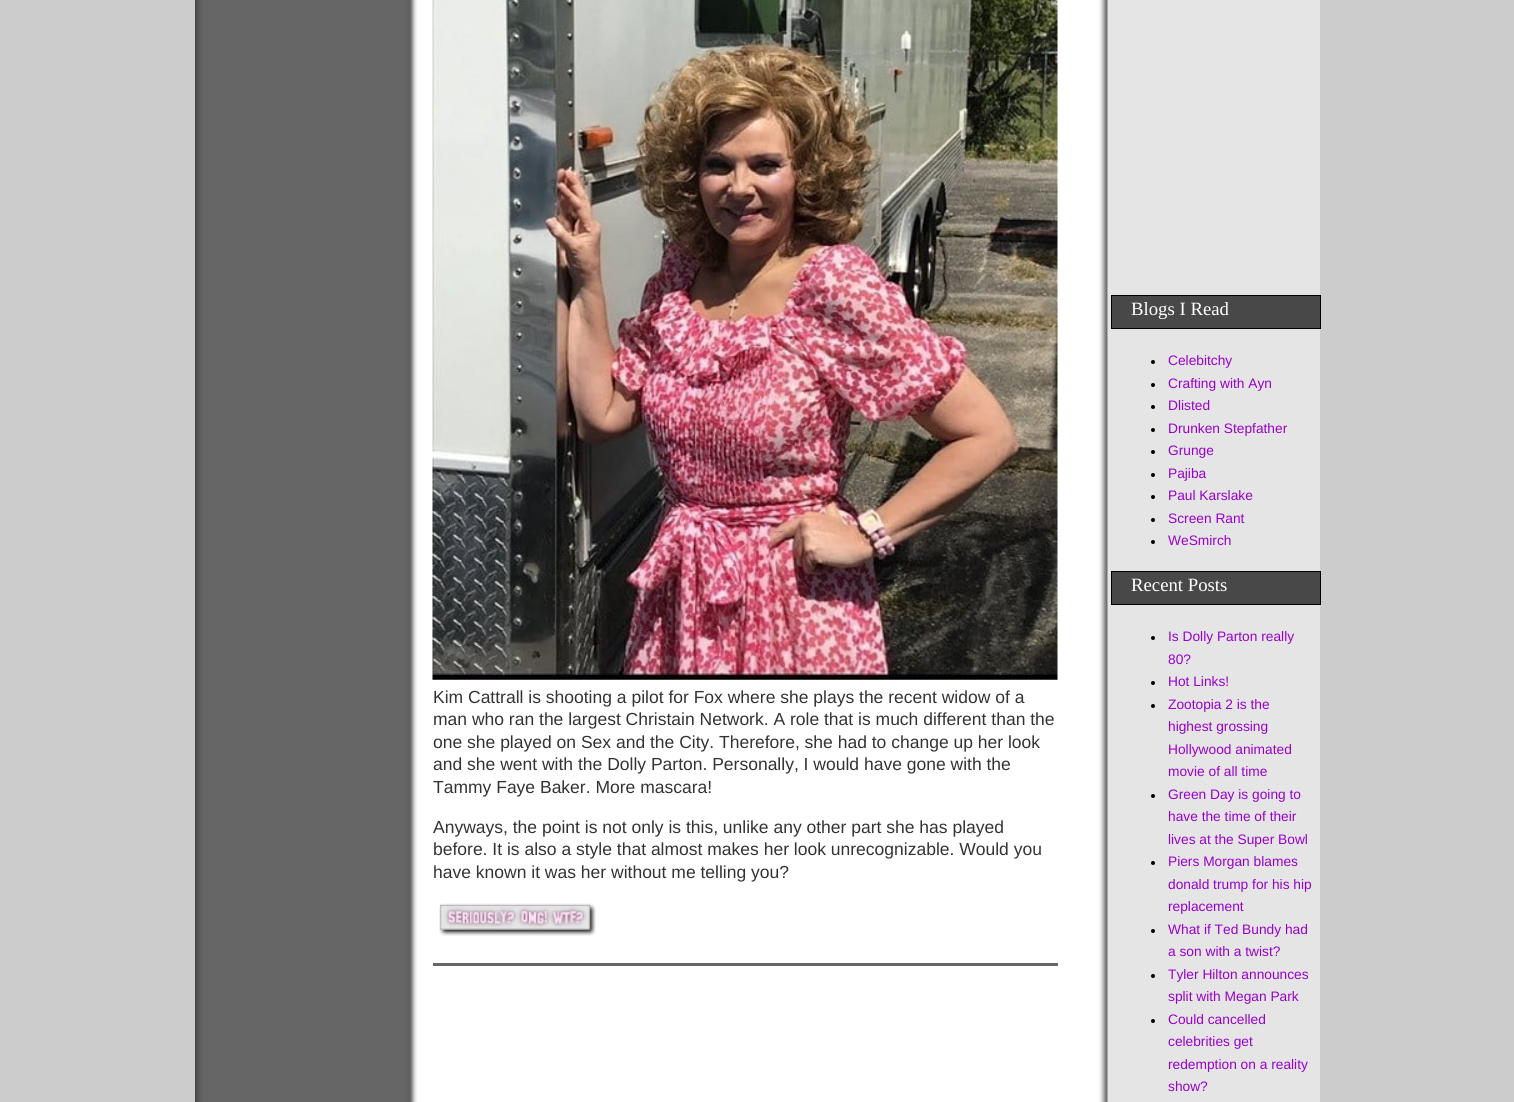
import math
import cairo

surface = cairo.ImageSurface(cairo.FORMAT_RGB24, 1514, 1102)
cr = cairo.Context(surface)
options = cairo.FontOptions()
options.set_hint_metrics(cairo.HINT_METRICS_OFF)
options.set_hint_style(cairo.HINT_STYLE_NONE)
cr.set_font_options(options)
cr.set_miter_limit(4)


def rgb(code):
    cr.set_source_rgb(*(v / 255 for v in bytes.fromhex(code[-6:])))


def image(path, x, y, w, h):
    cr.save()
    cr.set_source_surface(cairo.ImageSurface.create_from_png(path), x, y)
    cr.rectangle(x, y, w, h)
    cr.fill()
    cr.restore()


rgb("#cccccc")
cr.paint()
image("img/1.png", 195, 0, 1125, 1102)
image("img/2.png", 432, 0, 626, 680)
image("img/3.png", 439, 903, 157, 33)
rgb("#666666")
cr.rectangle(433, 963, 625, 3)
cr.fill()
rgb("#484848")
cr.rectangle(1111.5, 295.5, 209, 33)
cr.fill_preserve()
rgb("#000000")
cr.set_line_width(1)
cr.stroke()
rgb("#030303")
cr.arc(1153, 362, 2, 0, 2 * math.pi)
cr.fill()
cr.arc(1153, 385, 2, 0, 2 * math.pi)
cr.fill()
cr.arc(1153, 407, 2, 0, 2 * math.pi)
cr.fill()
cr.arc(1153, 430, 2, 0, 2 * math.pi)
cr.fill()
cr.arc(1153, 452, 2, 0, 2 * math.pi)
cr.fill()
cr.arc(1153, 475, 2, 0, 2 * math.pi)
cr.fill()
cr.arc(1153, 497, 2, 0, 2 * math.pi)
cr.fill()
cr.arc(1153, 520, 2, 0, 2 * math.pi)
cr.fill()
cr.arc(1153, 542, 2, 0, 2 * math.pi)
cr.fill()
rgb("#484848")
cr.rectangle(1111.5, 571.5, 209, 33)
cr.fill_preserve()
rgb("#000000")
cr.stroke()
rgb("#030303")
cr.arc(1153, 638, 2, 0, 2 * math.pi)
cr.fill()
cr.arc(1153, 683, 2, 0, 2 * math.pi)
cr.fill()
cr.arc(1153, 706, 2, 0, 2 * math.pi)
cr.fill()
cr.arc(1153, 796, 2, 0, 2 * math.pi)
cr.fill()
cr.arc(1153, 863, 2, 0, 2 * math.pi)
cr.fill()
cr.arc(1153, 931, 2, 0, 2 * math.pi)
cr.fill()
cr.arc(1153, 976, 2, 0, 2 * math.pi)
cr.fill()
cr.arc(1153, 1021, 2, 0, 2 * math.pi)
cr.fill()
cr.select_font_face("Liberation Sans")
cr.set_font_size(17.5)
rgb("#333333")
for x, y, s in [
    (433, 703, "Kim Cattrall is shooting a pilot for Fox where she plays the recent widow of a"),
    (433, 725, "man who ran the largest Christain Network. A role that is much different than the"),
    (433, 748, "one she played on Sex and the City. Therefore, she had to change up her look"),
    (433, 770, "and she went with the Dolly Parton. Personally, I would have gone with the"),
    (433, 793, "Tammy Faye Baker. More mascara!"),
    (433, 833, "Anyways, the point is not only is this, unlike any other part she has played"),
    (433, 855, "before. It is also a style that almost makes her look unrecognizable. Would you"),
    (433, 878, "have known it was her without me telling you?"),
]:
    cr.move_to(x, y)
    cr.show_text(s)
cr.select_font_face("Liberation Serif")
cr.set_font_size(18.75)
rgb("#ffffff")
cr.move_to(1131, 315)
cr.show_text("Blogs I Read")
cr.select_font_face("Liberation Sans")
cr.set_font_size(13.75)
rgb("#9900cc")
for x, y, s in [
    (1168, 365, "Celebitchy"),
    (1168, 388, "Crafting with Ayn"),
    (1168, 410, "Dlisted"),
    (1168, 433, "Drunken Stepfather"),
    (1168, 455, "Grunge"),
    (1168, 478, "Pajiba"),
    (1168, 500, "Paul Karslake"),
    (1168, 523, "Screen Rant"),
    (1168, 545, "WeSmirch"),
]:
    cr.move_to(x, y)
    cr.show_text(s)
cr.select_font_face("Liberation Serif")
cr.set_font_size(18.75)
rgb("#ffffff")
cr.move_to(1131, 591)
cr.show_text("Recent Posts")
cr.select_font_face("Liberation Sans")
cr.set_font_size(13.75)
rgb("#9900cc")
for x, y, s in [
    (1168, 641, "Is Dolly Parton really"),
    (1168, 664, "80?"),
    (1168, 686, "Hot Links!"),
    (1168, 709, "Zootopia 2 is the"),
    (1168, 731, "highest grossing"),
    (1168, 754, "Hollywood animated"),
    (1168, 776, "movie of all time"),
    (1168, 799, "Green Day is going to"),
    (1168, 821, "have the time of their"),
    (1168, 844, "lives at the Super Bowl"),
    (1168, 866, "Piers Morgan blames"),
    (1168, 889, "donald trump for his hip"),
    (1168, 911, "replacement"),
    (1168, 934, "What if Ted Bundy had"),
    (1168, 956, "a son with a twist?"),
    (1168, 979, "Tyler Hilton announces"),
    (1168, 1001, "split with Megan Park"),
    (1168, 1024, "Could cancelled"),
    (1168, 1046, "celebrities get"),
    (1168, 1069, "redemption on a reality"),
    (1168, 1091, "show?"),
]:
    cr.move_to(x, y)
    cr.show_text(s)
surface.write_to_png("page.png")
